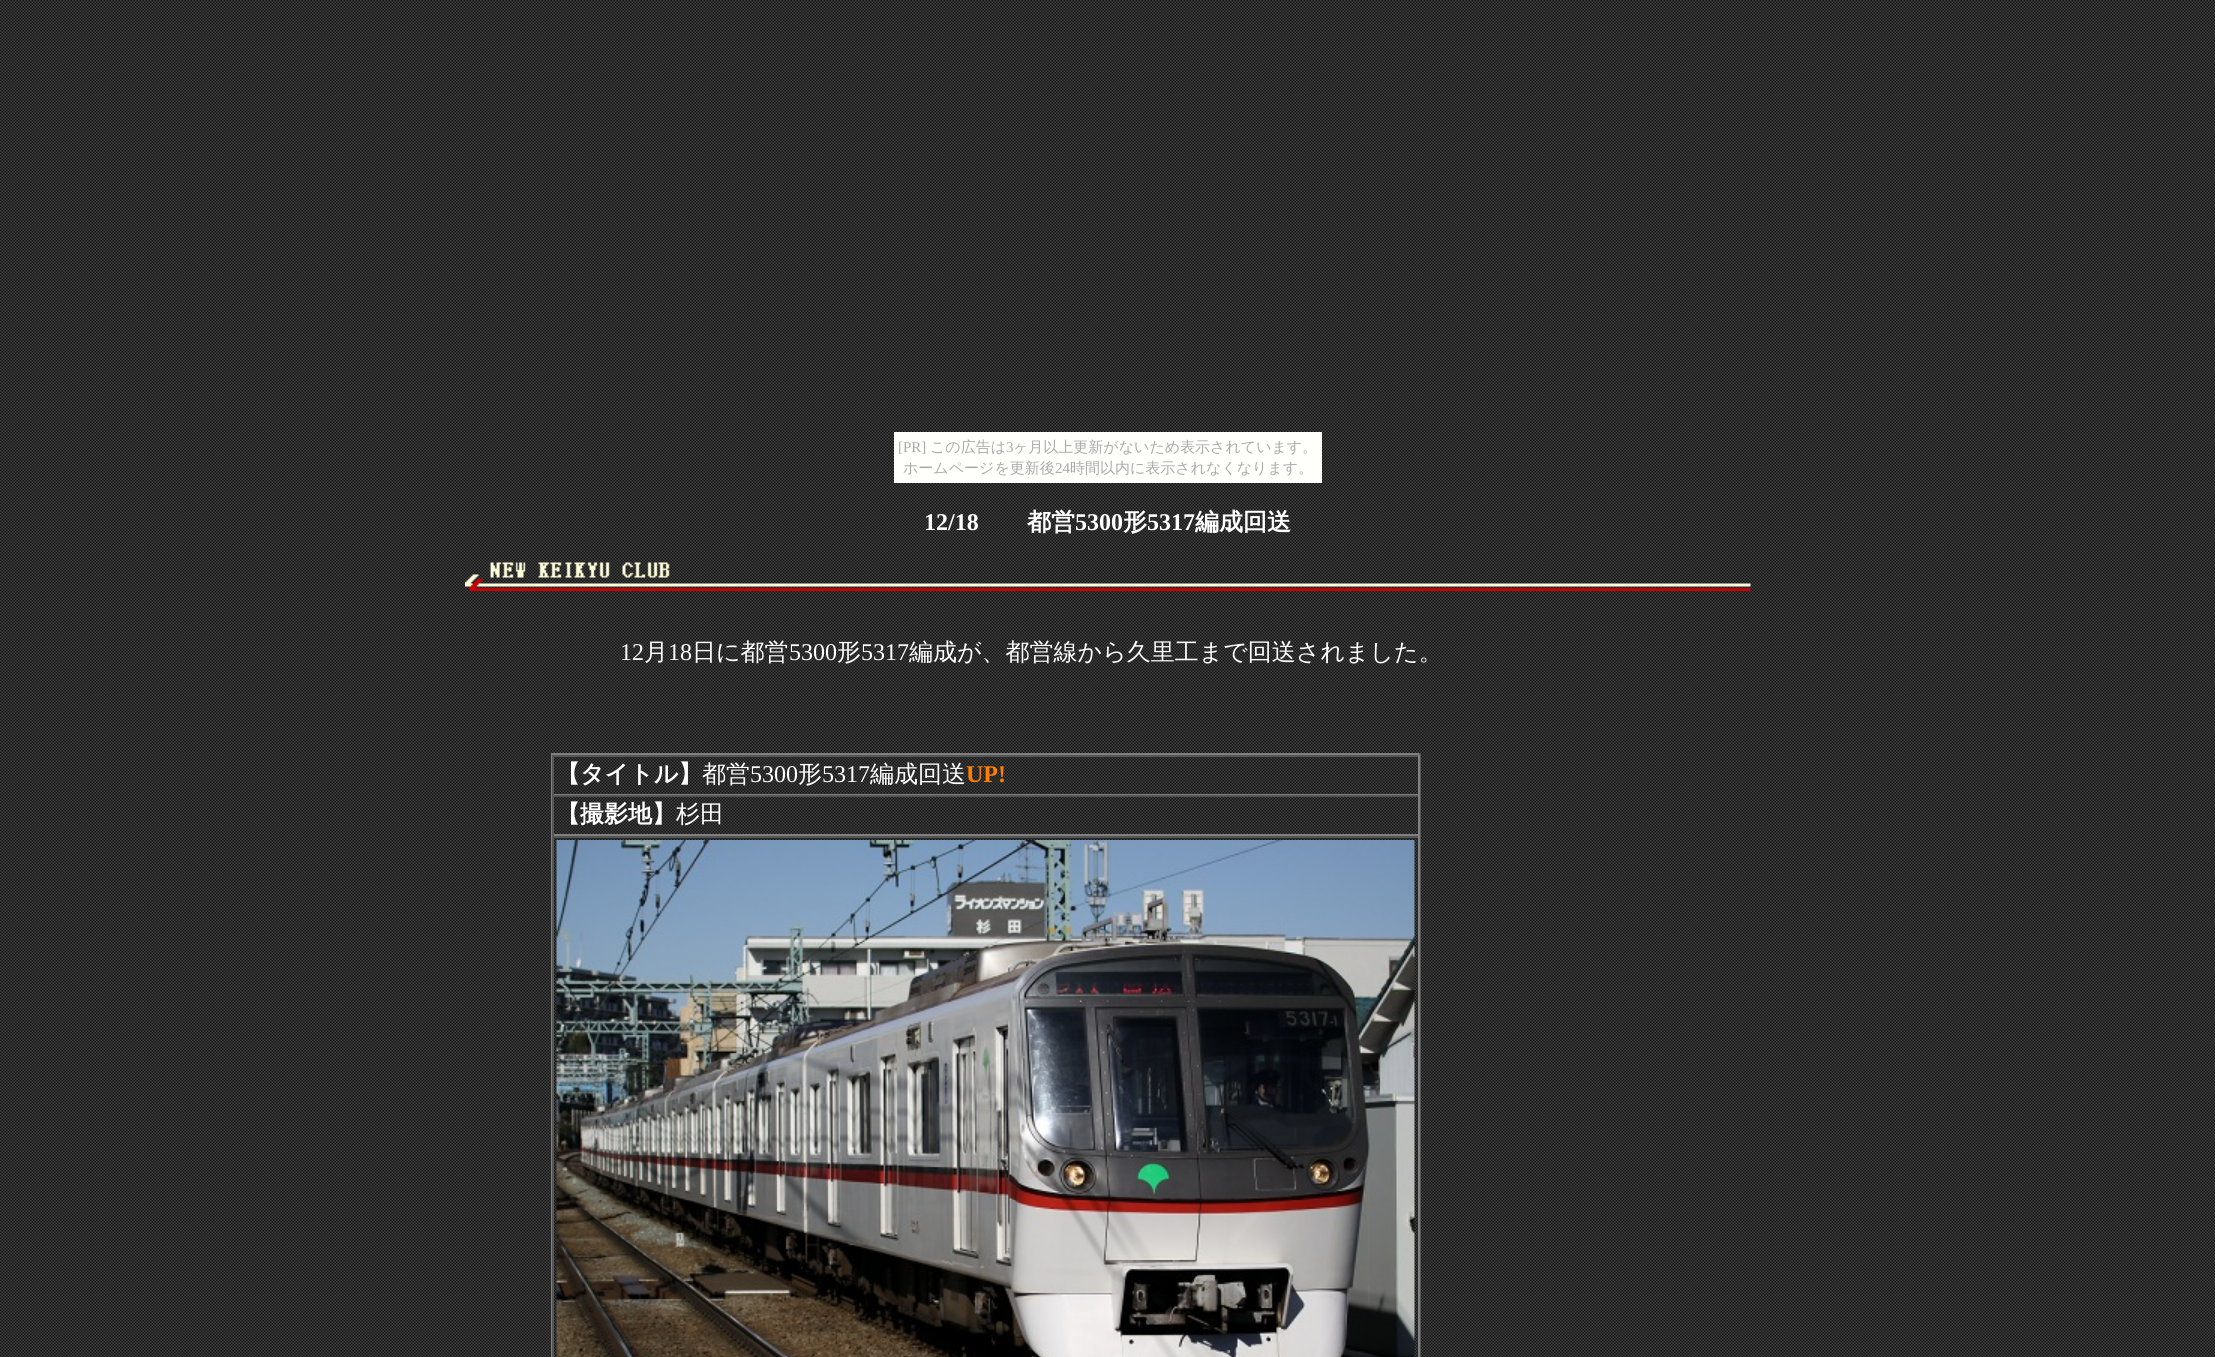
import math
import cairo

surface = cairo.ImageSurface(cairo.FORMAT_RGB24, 2215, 1357)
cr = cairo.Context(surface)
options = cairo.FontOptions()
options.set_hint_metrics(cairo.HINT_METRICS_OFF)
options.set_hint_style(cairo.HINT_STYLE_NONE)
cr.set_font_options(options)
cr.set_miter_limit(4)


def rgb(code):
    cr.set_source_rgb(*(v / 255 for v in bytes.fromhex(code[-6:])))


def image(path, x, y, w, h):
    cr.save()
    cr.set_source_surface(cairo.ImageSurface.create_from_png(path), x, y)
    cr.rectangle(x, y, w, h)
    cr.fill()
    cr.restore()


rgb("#555555")
cr.paint()
image("img/1.png", 0, 0, 2215, 1357)
rgb("#fffffc")
cr.rectangle(894, 432, 428, 51)
cr.fill()
image("img/2.png", 465, 562, 1286, 29)
for x, y, w, h, color in [
    (551, 753, 870, 2, "#808080"),
    (1419, 753, 2, 604, "#555555"),
    (551, 753, 2, 604, "#808080"),
    (552, 755, 867, 2, "#555555"),
    (1418, 755, 2, 40, "#808080"),
    (552, 794, 867, 1, "#808080"),
    (552, 755, 2, 40, "#555555"),
    (552, 795, 867, 2, "#555555"),
    (1418, 795, 2, 41, "#808080"),
    (552, 834, 867, 2, "#808080"),
    (552, 795, 2, 41, "#555555"),
    (552, 836, 867, 2, "#555555"),
    (1418, 836, 2, 521, "#808080"),
    (552, 836, 2, 521, "#555555"),
]:
    rgb(color)
    cr.rectangle(x, y, w, h)
    cr.fill()
image("img/3.png", 556, 840, 859, 517)
cr.select_font_face("Liberation Serif")
cr.set_font_size(15)
rgb("#aaaaaa")
cr.move_to(898, 452)
cr.show_text("[PR]")
cr.select_font_face("WenQuanYi Zen Hei Medium")
cr.move_to(930, 452)
cr.show_text("この広告は")
cr.select_font_face("Liberation Serif")
cr.move_to(1006, 452)
cr.show_text("3")
cr.select_font_face("WenQuanYi Zen Hei Medium")
cr.move_to(1013, 452)
cr.show_text("ヶ月以上更新がないため表示されています。")
cr.move_to(903, 473)
cr.show_text("ホームページを更新後")
cr.select_font_face("Liberation Serif")
cr.move_to(1055, 473)
cr.show_text("24")
cr.select_font_face("WenQuanYi Zen Hei Medium")
cr.move_to(1070, 473)
cr.show_text("時間以内に表示されなくなります。")
cr.select_font_face("Liberation Serif", cairo.FONT_SLANT_NORMAL, cairo.FONT_WEIGHT_BOLD)
cr.set_font_size(24)
rgb("#ffffff")
cr.move_to(924, 530)
cr.show_text("12/18")
cr.select_font_face("WenQuanYi Zen Hei", cairo.FONT_SLANT_NORMAL, cairo.FONT_WEIGHT_BOLD)
cr.move_to(1027, 530)
cr.show_text("都営")
cr.select_font_face("Liberation Serif", cairo.FONT_SLANT_NORMAL, cairo.FONT_WEIGHT_BOLD)
cr.move_to(1075, 530)
cr.show_text("5300")
cr.select_font_face("WenQuanYi Zen Hei", cairo.FONT_SLANT_NORMAL, cairo.FONT_WEIGHT_BOLD)
cr.move_to(1123, 530)
cr.show_text("形")
cr.select_font_face("Liberation Serif", cairo.FONT_SLANT_NORMAL, cairo.FONT_WEIGHT_BOLD)
cr.move_to(1147, 530)
cr.show_text("5317")
cr.select_font_face("WenQuanYi Zen Hei", cairo.FONT_SLANT_NORMAL, cairo.FONT_WEIGHT_BOLD)
cr.move_to(1195, 530)
cr.show_text("編成回送")
cr.select_font_face("Liberation Serif")
cr.move_to(620, 660)
cr.show_text("12")
cr.select_font_face("WenQuanYi Zen Hei Medium")
cr.move_to(644, 660)
cr.show_text("月")
cr.select_font_face("Liberation Serif")
cr.move_to(668, 660)
cr.show_text("18")
cr.select_font_face("WenQuanYi Zen Hei Medium")
cr.move_to(692, 660)
cr.show_text("日に都営")
cr.select_font_face("Liberation Serif")
cr.move_to(789, 660)
cr.show_text("5300")
cr.select_font_face("WenQuanYi Zen Hei Medium")
cr.move_to(837, 660)
cr.show_text("形")
cr.select_font_face("Liberation Serif")
cr.move_to(861, 660)
cr.show_text("5317")
cr.select_font_face("WenQuanYi Zen Hei Medium")
cr.move_to(909, 660)
cr.show_text("編成が、都営線から久里工まで回送されました。")
cr.select_font_face("WenQuanYi Zen Hei", cairo.FONT_SLANT_NORMAL, cairo.FONT_WEIGHT_BOLD)
cr.move_to(556, 782)
cr.show_text("【タイトル】")
cr.select_font_face("WenQuanYi Zen Hei Medium")
cr.move_to(702, 782)
cr.show_text("都営")
cr.select_font_face("Liberation Serif")
cr.move_to(750, 782)
cr.show_text("5300")
cr.select_font_face("WenQuanYi Zen Hei Medium")
cr.move_to(798, 782)
cr.show_text("形")
cr.select_font_face("Liberation Serif")
cr.move_to(822, 782)
cr.show_text("5317")
cr.select_font_face("WenQuanYi Zen Hei Medium")
cr.move_to(870, 782)
cr.show_text("編成回送")
cr.select_font_face("Liberation Serif", cairo.FONT_SLANT_NORMAL, cairo.FONT_WEIGHT_BOLD)
rgb("#ff8000")
cr.move_to(966, 782)
cr.show_text("UP!")
cr.select_font_face("WenQuanYi Zen Hei", cairo.FONT_SLANT_NORMAL, cairo.FONT_WEIGHT_BOLD)
rgb("#ffffff")
cr.move_to(556, 822)
cr.show_text("【撮影地】")
cr.select_font_face("WenQuanYi Zen Hei Medium")
cr.move_to(676, 822)
cr.show_text("杉田")
surface.write_to_png("page.png")
